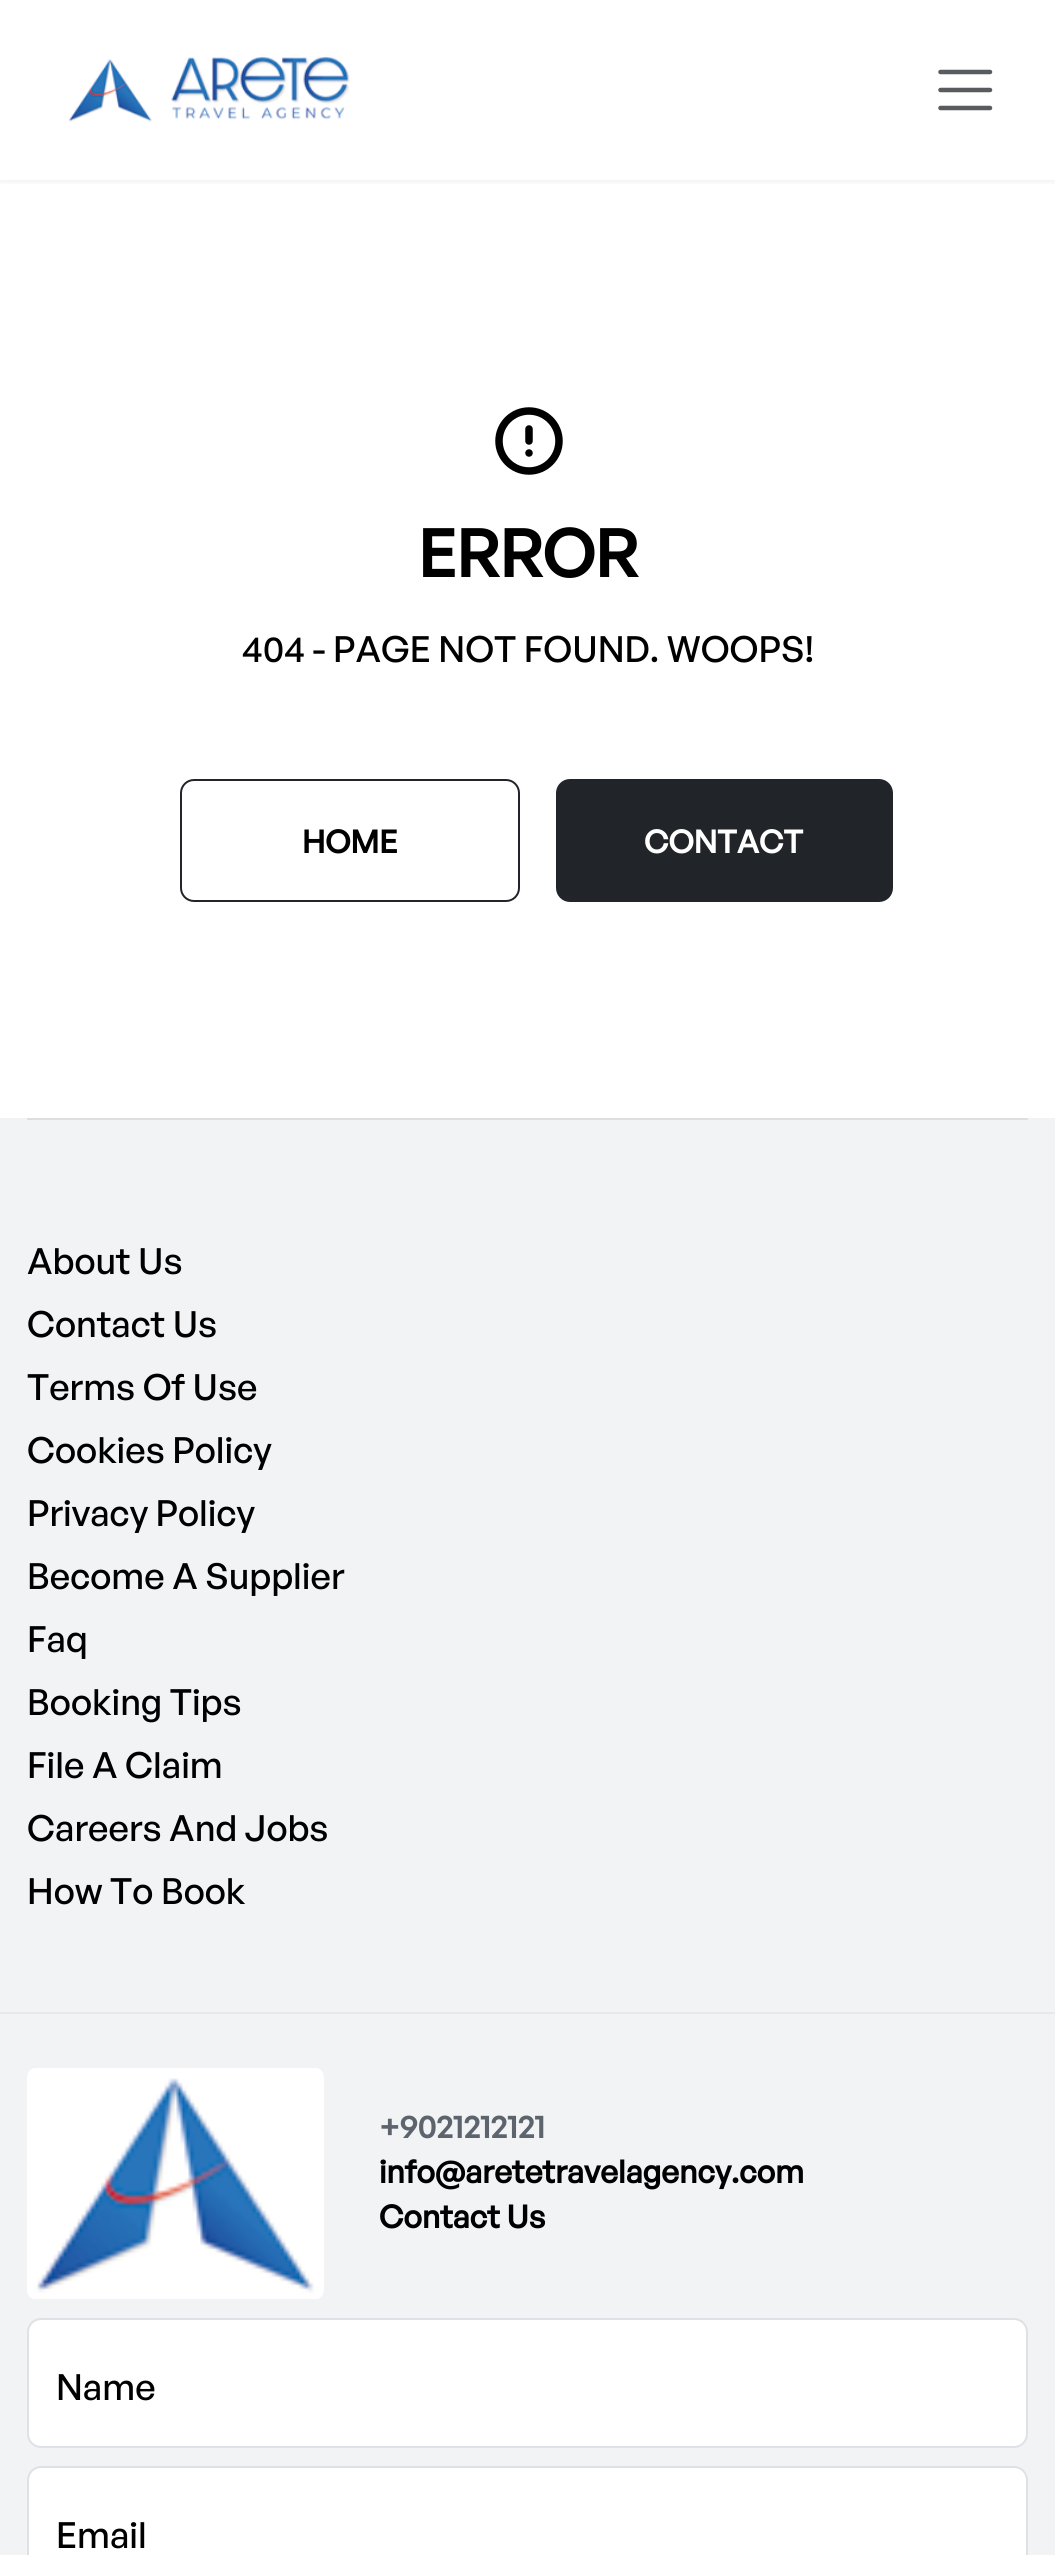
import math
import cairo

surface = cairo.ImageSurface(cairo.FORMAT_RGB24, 1055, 2555)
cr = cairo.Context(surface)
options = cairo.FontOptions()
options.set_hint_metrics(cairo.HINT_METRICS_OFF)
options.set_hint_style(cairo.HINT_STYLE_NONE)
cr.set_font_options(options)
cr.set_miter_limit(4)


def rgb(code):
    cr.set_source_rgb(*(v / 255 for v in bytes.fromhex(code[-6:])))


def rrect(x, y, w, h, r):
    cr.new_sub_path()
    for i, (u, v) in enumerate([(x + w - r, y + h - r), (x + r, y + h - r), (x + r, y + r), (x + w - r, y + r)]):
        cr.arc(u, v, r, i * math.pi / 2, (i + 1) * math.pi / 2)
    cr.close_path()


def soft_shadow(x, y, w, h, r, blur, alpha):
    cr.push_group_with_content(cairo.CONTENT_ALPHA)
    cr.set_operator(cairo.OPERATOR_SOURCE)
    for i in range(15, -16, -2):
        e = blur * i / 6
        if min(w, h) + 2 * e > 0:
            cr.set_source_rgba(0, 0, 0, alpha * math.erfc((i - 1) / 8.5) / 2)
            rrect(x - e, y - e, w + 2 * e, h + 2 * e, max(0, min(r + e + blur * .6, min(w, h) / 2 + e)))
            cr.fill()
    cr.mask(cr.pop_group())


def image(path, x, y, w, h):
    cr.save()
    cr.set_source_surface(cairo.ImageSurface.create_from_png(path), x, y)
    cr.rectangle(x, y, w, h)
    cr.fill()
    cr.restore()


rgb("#ffffff")
cr.paint()
cr.save()
cr.rectangle(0, 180, 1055, 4)
cr.clip()
rgb("#334150")
soft_shadow(0, 2, 1055, 180, 0, 3.5, 0.08)
cr.restore()
image("img/1.png", 69, 56, 281, 66)
cr.new_path()
cr.move_to(940.5, 72)
cr.line_to(990, 72)
cr.move_to(940.5, 90)
cr.line_to(990, 90)
cr.move_to(940.5, 108)
cr.line_to(990, 108)
rgb("#595c5f")
cr.set_line_width(4.5)
cr.set_line_cap(cairo.LINE_CAP_ROUND)
cr.stroke()
cr.arc(529, 441, 30, 0, 2 * math.pi)
rgb("#000000")
cr.set_line_width(7.5)
cr.set_line_cap(cairo.LINE_CAP_BUTT)
cr.stroke()
cr.new_path()
cr.move_to(529, 429)
cr.line_to(529, 441)
cr.move_to(529, 453)
cr.line_to(529, 453)
cr.set_line_cap(cairo.LINE_CAP_ROUND)
cr.set_line_join(cairo.LINE_JOIN_ROUND)
cr.stroke()
rrect(181, 780, 338, 121, 13)
rgb("#212529")
cr.set_line_width(2)
cr.set_line_cap(cairo.LINE_CAP_BUTT)
cr.set_line_join(cairo.LINE_JOIN_MITER)
cr.stroke()
rrect(557, 780, 335, 121, 13)
cr.fill_preserve()
cr.stroke()
for x, y, w, h, color in [
    (0, 1118, 1055, 1437, "#f1f3f5"),
    (27, 1118, 1001, 2, "#dddee0"),
    (0, 2012, 1055, 2, "#e6e8ec"),
]:
    rgb(color)
    cr.rectangle(x, y, w, h)
    cr.fill()
image("img/2.png", 27, 2068, 297, 231)
rgb("#ffffff")
rrect(29, 2320, 997, 126, 11)
cr.fill()
rrect(28, 2319, 999, 128, 13)
rgb("#dee2e6")
cr.stroke()
rgb("#ffffff")
rrect(29, 2468, 997, 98, 11)
cr.fill()
rrect(28, 2467, 999, 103, 13)
rgb("#dee2e6")
cr.stroke()
cr.select_font_face("General Sans", cairo.FONT_SLANT_NORMAL, cairo.FONT_WEIGHT_BOLD)
cr.set_font_size(65.5)
rgb("#000000")
cr.move_to(418, 577)
cr.show_text("ERROR")
cr.select_font_face("General Sans Medium")
cr.set_font_size(36)
cr.move_to(242, 662)
cr.show_text("404 - PAGE NOT FOUND. WOOPS!")
cr.select_font_face("General Sans", cairo.FONT_SLANT_NORMAL, cairo.FONT_WEIGHT_BOLD)
cr.set_font_size(31.5)
cr.move_to(302, 853)
cr.show_text("HOME")
rgb("#ffffff")
cr.move_to(644, 853)
cr.show_text("CONTACT")
cr.select_font_face("General Sans Medium")
cr.set_font_size(36)
rgb("#000000")
for x, y, s in [
    (27, 1274, "About Us"),
    (27, 1337, "Contact Us"),
    (27, 1400, "Terms Of Use"),
    (27, 1463, "Cookies Policy"),
    (27, 1526, "Privacy Policy"),
    (27, 1589, "Become A Supplier"),
    (27, 1652, "Faq"),
    (27, 1715, "Booking Tips"),
    (27, 1778, "File A Claim"),
    (27, 1841, "Careers And Jobs"),
    (27, 1904, "How To Book"),
]:
    cr.move_to(x, y)
    cr.show_text(s)
cr.select_font_face("General Sans", cairo.FONT_SLANT_NORMAL, cairo.FONT_WEIGHT_BOLD)
cr.set_font_size(31.5)
rgb("#5d646d")
cr.move_to(379, 2138)
cr.show_text("+9021212121")
rgb("#000000")
cr.move_to(379, 2183)
cr.show_text("info@aretetravelagency.com")
cr.move_to(379, 2228)
cr.show_text("Contact Us")
cr.select_font_face("General Sans Medium")
cr.set_font_size(36)
cr.move_to(56, 2400)
cr.show_text("Name")
cr.move_to(56, 2548)
cr.show_text("Email")
surface.write_to_png("page.png")
